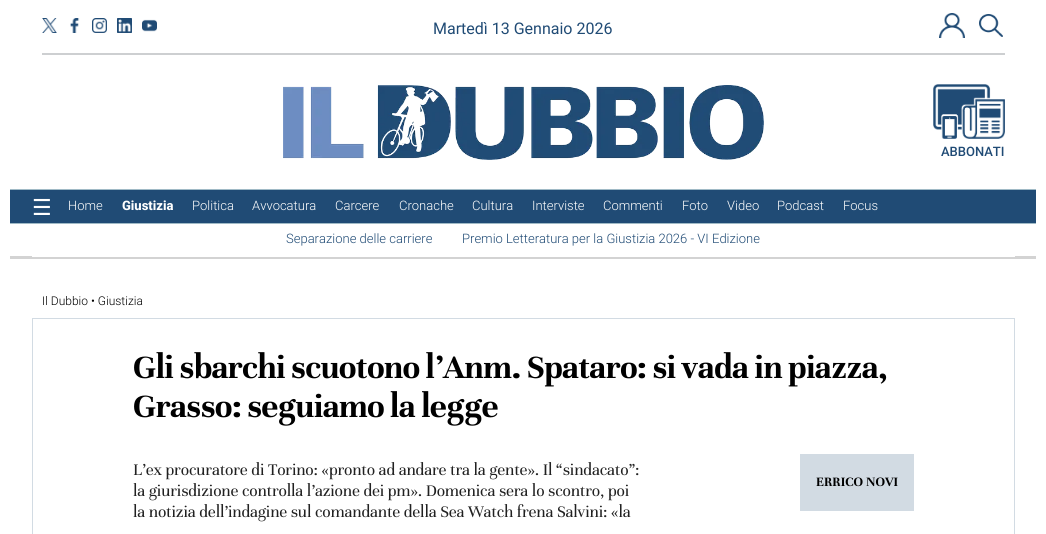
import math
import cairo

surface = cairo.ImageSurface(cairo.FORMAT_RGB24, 1046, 534)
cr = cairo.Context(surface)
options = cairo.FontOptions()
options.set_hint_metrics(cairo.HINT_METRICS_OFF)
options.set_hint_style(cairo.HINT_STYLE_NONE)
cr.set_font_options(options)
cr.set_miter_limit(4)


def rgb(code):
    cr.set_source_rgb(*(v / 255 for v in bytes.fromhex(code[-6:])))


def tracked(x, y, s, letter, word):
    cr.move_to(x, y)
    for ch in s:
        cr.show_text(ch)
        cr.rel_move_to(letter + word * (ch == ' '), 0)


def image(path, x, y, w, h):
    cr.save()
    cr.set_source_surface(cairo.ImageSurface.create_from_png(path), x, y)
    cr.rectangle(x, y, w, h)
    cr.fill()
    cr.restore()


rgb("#ffffff")
cr.paint()
rgb("#cdcfd1")
cr.rectangle(42, 53, 963, 2)
cr.fill()
image("img/1.png", 42, 18, 15, 15)
image("img/2.png", 70, 18, 10, 15)
image("img/3.png", 92, 18, 15, 15)
image("img/4.png", 117, 18, 15, 15)
image("img/5.png", 142, 19, 15, 13)
image("img/6.png", 939, 13, 26, 25)
image("img/7.png", 979, 14, 24, 23)
image("img/8.png", 283, 85, 481, 75)
image("img/9.png", 933, 84, 72, 55)
for x, y, w, h, color in [
    (10, 190, 1026, 33, "#204b75"),
    (10, 189, 1026, 1, "#a0bac6"),
    (10, 223, 1026, 1, "#a0bac6"),
    (10, 256, 1026, 3, "#d3d3d3"),
    (32, 256, 983, 1, "#ffffff"),
]:
    rgb(color)
    cr.rectangle(x, y, w, h)
    cr.fill()
cr.rectangle(32.5, 318.5, 982, 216)
rgb("#d2dbe3")
cr.set_line_width(1)
cr.stroke()
cr.rectangle(800, 454, 114, 57)
cr.fill()
cr.select_font_face("Roboto")
cr.set_font_size(16)
rgb("#204b75")
cr.move_to(433, 34)
cr.show_text("Martedì 13 Gennaio 2026")
cr.select_font_face("Roboto Medium")
cr.set_font_size(13)
cr.move_to(941, 156)
cr.show_text("ABBONATI")
cr.select_font_face("DejaVu Sans")
cr.set_font_size(22)
rgb("#ffffff")
cr.move_to(32, 215)
cr.show_text("☰")
cr.select_font_face("Roboto Light")
cr.set_font_size(13)
cr.move_to(68, 210)
cr.show_text("Home")
cr.select_font_face("Roboto ExtraBold")
cr.move_to(122, 210)
cr.show_text("Giustizia")
cr.select_font_face("Roboto Light")
for x, y, s in [
    (192, 210, "Politica"),
    (252, 210, "Avvocatura"),
    (335, 210, "Carcere"),
    (399, 210, "Cronache"),
    (472, 210, "Cultura"),
    (532, 210, "Interviste"),
    (603, 210, "Commenti"),
    (682, 210, "Foto"),
    (727, 210, "Video"),
    (777, 210, "Podcast"),
    (843, 210, "Focus"),
]:
    cr.move_to(x, y)
    cr.show_text(s)
rgb("#204b75")
cr.move_to(286, 243)
cr.show_text("Separazione delle carriere")
cr.move_to(462, 243)
cr.show_text("Premio Letteratura per la Giustizia 2026 - VI Edizione")
cr.set_font_size(12)
rgb("#000000")
cr.move_to(42, 305)
cr.show_text("Il Dubbio • Giustizia")
cr.select_font_face("Unna", cairo.FONT_SLANT_NORMAL, cairo.FONT_WEIGHT_BOLD)
cr.set_font_size(35.4)
tracked(133, 378, "Gli sbarchi scuotono l’Anm. Spataro: si vada in piazza,", -0.35, -1)
tracked(133, 417, "Grasso: seguiamo la legge", -0.35, -1)
cr.select_font_face("Unna")
cr.set_font_size(17.7)
rgb("#212121")
for x, y, s in [
    (133, 475, "L’ex procuratore di Torino: «pronto ad andare tra la gente». Il “sindacato”:"),
    (133, 496, "la giurisdizione controlla l’azione dei pm». Domenica sera lo scontro, poi"),
    (133, 517, "la notizia dell’indagine sul comandante della Sea Watch frena Salvini: «la"),
]:
    tracked(x, y, s, -0.18, 0)
cr.select_font_face("Unna", cairo.FONT_SLANT_NORMAL, cairo.FONT_WEIGHT_BOLD)
cr.set_font_size(14)
rgb("#000000")
cr.move_to(816, 486)
cr.show_text("ERRICO NOVI")
surface.write_to_png("page.png")
